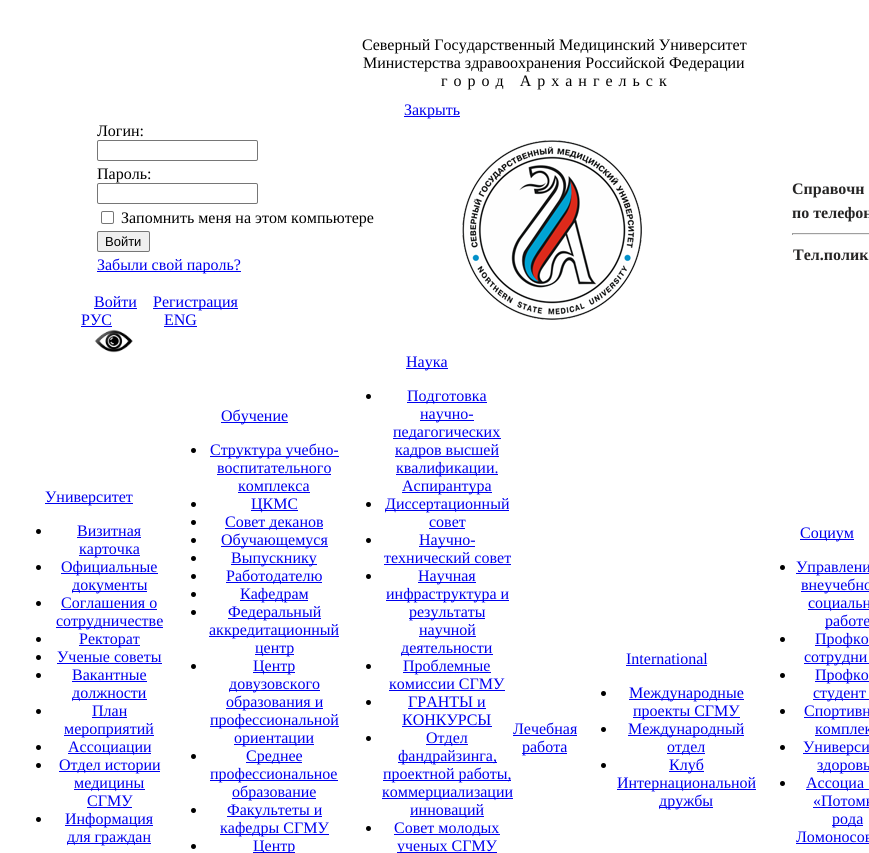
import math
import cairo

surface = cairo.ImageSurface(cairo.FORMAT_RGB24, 869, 853)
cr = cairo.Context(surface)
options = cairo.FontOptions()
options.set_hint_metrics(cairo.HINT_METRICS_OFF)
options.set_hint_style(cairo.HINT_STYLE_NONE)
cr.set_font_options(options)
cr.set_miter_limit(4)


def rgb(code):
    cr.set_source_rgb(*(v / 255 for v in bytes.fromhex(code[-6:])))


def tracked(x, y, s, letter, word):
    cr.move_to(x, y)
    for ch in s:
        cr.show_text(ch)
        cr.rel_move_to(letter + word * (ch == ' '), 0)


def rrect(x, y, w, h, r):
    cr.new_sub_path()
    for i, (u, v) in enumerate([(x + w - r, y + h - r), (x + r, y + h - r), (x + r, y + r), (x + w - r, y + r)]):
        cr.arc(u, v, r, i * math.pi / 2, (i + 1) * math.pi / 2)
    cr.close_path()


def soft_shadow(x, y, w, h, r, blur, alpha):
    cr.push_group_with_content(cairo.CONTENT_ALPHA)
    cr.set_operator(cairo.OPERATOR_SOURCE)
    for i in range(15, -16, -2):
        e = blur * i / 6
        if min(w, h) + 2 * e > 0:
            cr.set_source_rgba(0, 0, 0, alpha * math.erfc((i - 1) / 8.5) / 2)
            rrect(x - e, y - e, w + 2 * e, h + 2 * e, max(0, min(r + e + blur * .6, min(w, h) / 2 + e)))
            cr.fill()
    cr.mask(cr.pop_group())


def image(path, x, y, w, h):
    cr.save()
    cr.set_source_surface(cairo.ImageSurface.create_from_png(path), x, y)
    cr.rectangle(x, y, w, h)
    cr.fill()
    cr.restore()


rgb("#ffffff")
cr.paint()
rgb("#0000ee")
cr.rectangle(404, 116, 56, 1)
cr.fill()
rrect(97.5, 140.5, 160, 20, 1.5)
rgb("#767676")
cr.set_line_width(1)
cr.stroke()
rrect(97.5, 183.5, 160, 20, 1.5)
cr.stroke()
rrect(101.5, 211.5, 12, 12, 1.5)
cr.stroke()
rgb("#efefef")
rrect(97.5, 231.5, 52, 20, 1.5)
cr.fill_preserve()
rgb("#767676")
cr.stroke()
for x, y, w, h, color in [
    (97, 271, 144, 1, "#0000ee"),
    (94, 308, 43, 1, "#0000ee"),
    (153, 308, 85, 1, "#0000ee"),
    (81, 326, 31, 1, "#0000ee"),
    (164, 326, 33, 1, "#0000ee"),
]:
    rgb(color)
    cr.rectangle(x, y, w, h)
    cr.fill()
image("img/1.png", 94, 329, 39, 24)
image("img/2.png", 462, 140, 180, 180)
cr.save()
cr.set_fill_rule(cairo.FILL_RULE_EVEN_ODD)
cr.new_path()
cr.move_to(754, 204)
cr.line_to(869, 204)
cr.line_to(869, 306)
cr.line_to(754, 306)
cr.close_path()
cr.move_to(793, 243)
cr.line_to(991, 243)
cr.line_to(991, 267)
cr.line_to(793, 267)
cr.close_path()
cr.clip()
rgb("#ffffff")
soft_shadow(785, 235, 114, 40, 0, 10, 1)
cr.restore()
for x, y, w, h, color in [
    (792, 233, 77, 1, "#9f9f9f"),
    (792, 234, 77, 1, "#eeeeee"),
    (792, 233, 1, 2, "#9f9f9f"),
    (45, 503, 88, 1, "#0000ee"),
]:
    rgb(color)
    cr.rectangle(x, y, w, h)
    cr.fill()
rgb("#000000")
cr.arc(38.5, 531.5, 2.5, 0, 2 * math.pi)
cr.fill()
rgb("#0000ee")
cr.rectangle(77, 537, 64, 1)
cr.fill()
cr.rectangle(79, 555, 61, 1)
cr.fill()
rgb("#000000")
cr.arc(38.5, 567.5, 2.5, 0, 2 * math.pi)
cr.fill()
rgb("#0000ee")
cr.rectangle(61, 573, 97, 1)
cr.fill()
cr.rectangle(72, 591, 75, 1)
cr.fill()
rgb("#000000")
cr.arc(38.5, 603.5, 2.5, 0, 2 * math.pi)
cr.fill()
rgb("#0000ee")
cr.rectangle(61, 609, 96, 1)
cr.fill()
cr.rectangle(56, 627, 107, 1)
cr.fill()
rgb("#000000")
cr.arc(38.5, 639.5, 2.5, 0, 2 * math.pi)
cr.fill()
rgb("#0000ee")
cr.rectangle(79, 645, 61, 1)
cr.fill()
rgb("#000000")
cr.arc(38.5, 657.5, 2.5, 0, 2 * math.pi)
cr.fill()
rgb("#0000ee")
cr.rectangle(57, 663, 105, 1)
cr.fill()
rgb("#000000")
cr.arc(38.5, 675.5, 2.5, 0, 2 * math.pi)
cr.fill()
rgb("#0000ee")
cr.rectangle(72, 681, 75, 1)
cr.fill()
cr.rectangle(72, 699, 75, 1)
cr.fill()
rgb("#000000")
cr.arc(38.5, 711.5, 2.5, 0, 2 * math.pi)
cr.fill()
rgb("#0000ee")
cr.rectangle(92, 717, 35, 1)
cr.fill()
cr.rectangle(64, 735, 90, 1)
cr.fill()
rgb("#000000")
cr.arc(38.5, 747.5, 2.5, 0, 2 * math.pi)
cr.fill()
rgb("#0000ee")
cr.rectangle(68, 753, 83, 1)
cr.fill()
rgb("#000000")
cr.arc(38.5, 765.5, 2.5, 0, 2 * math.pi)
cr.fill()
for x, y, w, h, color in [
    (59, 771, 101, 1, "#0000ee"),
    (74, 789, 71, 1, "#0000ee"),
    (87, 807, 45, 1, "#0000ee"),
]:
    rgb(color)
    cr.rectangle(x, y, w, h)
    cr.fill()
rgb("#000000")
cr.arc(38.5, 819.5, 2.5, 0, 2 * math.pi)
cr.fill()
for x, y, w, h, color in [
    (65, 825, 88, 1, "#0000ee"),
    (67, 843, 84, 1, "#0000ee"),
    (221, 422, 67, 1, "#0000ee"),
]:
    rgb(color)
    cr.rectangle(x, y, w, h)
    cr.fill()
rgb("#000000")
cr.arc(193.5, 450.5, 2.5, 0, 2 * math.pi)
cr.fill()
for x, y, w, h, color in [
    (210, 456, 129, 1, "#0000ee"),
    (217, 474, 114, 1, "#0000ee"),
    (238, 492, 72, 1, "#0000ee"),
]:
    rgb(color)
    cr.rectangle(x, y, w, h)
    cr.fill()
rgb("#000000")
cr.arc(193.5, 504.5, 2.5, 0, 2 * math.pi)
cr.fill()
rgb("#0000ee")
cr.rectangle(251, 510, 47, 1)
cr.fill()
rgb("#000000")
cr.arc(193.5, 522.5, 2.5, 0, 2 * math.pi)
cr.fill()
rgb("#0000ee")
cr.rectangle(225, 528, 98, 1)
cr.fill()
rgb("#000000")
cr.arc(193.5, 540.5, 2.5, 0, 2 * math.pi)
cr.fill()
rgb("#0000ee")
cr.rectangle(221, 546, 107, 1)
cr.fill()
rgb("#000000")
cr.arc(193.5, 558.5, 2.5, 0, 2 * math.pi)
cr.fill()
rgb("#0000ee")
cr.rectangle(231, 564, 86, 1)
cr.fill()
rgb("#000000")
cr.arc(193.5, 576.5, 2.5, 0, 2 * math.pi)
cr.fill()
rgb("#0000ee")
cr.rectangle(226, 582, 96, 1)
cr.fill()
rgb("#000000")
cr.arc(193.5, 594.5, 2.5, 0, 2 * math.pi)
cr.fill()
rgb("#0000ee")
cr.rectangle(240, 600, 68, 1)
cr.fill()
rgb("#000000")
cr.arc(193.5, 612.5, 2.5, 0, 2 * math.pi)
cr.fill()
for x, y, w, h, color in [
    (228, 618, 93, 1, "#0000ee"),
    (209, 636, 130, 1, "#0000ee"),
    (255, 654, 39, 1, "#0000ee"),
]:
    rgb(color)
    cr.rectangle(x, y, w, h)
    cr.fill()
rgb("#000000")
cr.arc(193.5, 666.5, 2.5, 0, 2 * math.pi)
cr.fill()
for x, y, w, h, color in [
    (253, 672, 42, 1, "#0000ee"),
    (229, 690, 91, 1, "#0000ee"),
    (226, 708, 97, 1, "#0000ee"),
    (210, 726, 129, 1, "#0000ee"),
    (234, 744, 80, 1, "#0000ee"),
]:
    rgb(color)
    cr.rectangle(x, y, w, h)
    cr.fill()
rgb("#000000")
cr.arc(193.5, 756.5, 2.5, 0, 2 * math.pi)
cr.fill()
for x, y, w, h, color in [
    (246, 762, 56, 1, "#0000ee"),
    (210, 780, 128, 1, "#0000ee"),
    (232, 798, 84, 1, "#0000ee"),
]:
    rgb(color)
    cr.rectangle(x, y, w, h)
    cr.fill()
rgb("#000000")
cr.arc(193.5, 810.5, 2.5, 0, 2 * math.pi)
cr.fill()
rgb("#0000ee")
cr.rectangle(227, 816, 95, 1)
cr.fill()
cr.rectangle(220, 834, 109, 1)
cr.fill()
rgb("#000000")
cr.arc(193.5, 846.5, 2.5, 0, 2 * math.pi)
cr.fill()
rgb("#0000ee")
cr.rectangle(253, 852, 42, 1)
cr.fill()
cr.rectangle(406, 368, 42, 1)
cr.fill()
rgb("#000000")
cr.arc(368.5, 396.5, 2.5, 0, 2 * math.pi)
cr.fill()
for x, y, w, h, color in [
    (407, 402, 80, 1, "#0000ee"),
    (420, 420, 54, 1, "#0000ee"),
    (393, 438, 108, 1, "#0000ee"),
    (395, 456, 104, 1, "#0000ee"),
    (396, 474, 102, 1, "#0000ee"),
    (402, 492, 90, 1, "#0000ee"),
]:
    rgb(color)
    cr.rectangle(x, y, w, h)
    cr.fill()
rgb("#000000")
cr.arc(368.5, 504.5, 2.5, 0, 2 * math.pi)
cr.fill()
rgb("#0000ee")
cr.rectangle(385, 510, 124, 1)
cr.fill()
cr.rectangle(429, 528, 36, 1)
cr.fill()
rgb("#000000")
cr.arc(368.5, 540.5, 2.5, 0, 2 * math.pi)
cr.fill()
rgb("#0000ee")
cr.rectangle(419, 546, 56, 1)
cr.fill()
cr.rectangle(384, 564, 127, 1)
cr.fill()
rgb("#000000")
cr.arc(368.5, 576.5, 2.5, 0, 2 * math.pi)
cr.fill()
for x, y, w, h, color in [
    (418, 582, 58, 1, "#0000ee"),
    (386, 600, 123, 1, "#0000ee"),
    (409, 618, 76, 1, "#0000ee"),
    (419, 636, 57, 1, "#0000ee"),
    (401, 654, 92, 1, "#0000ee"),
]:
    rgb(color)
    cr.rectangle(x, y, w, h)
    cr.fill()
rgb("#000000")
cr.arc(368.5, 666.5, 2.5, 0, 2 * math.pi)
cr.fill()
rgb("#0000ee")
cr.rectangle(403, 672, 88, 1)
cr.fill()
cr.rectangle(389, 690, 116, 1)
cr.fill()
rgb("#000000")
cr.arc(368.5, 702.5, 2.5, 0, 2 * math.pi)
cr.fill()
rgb("#0000ee")
cr.rectangle(408, 708, 78, 1)
cr.fill()
cr.rectangle(402, 726, 90, 1)
cr.fill()
rgb("#000000")
cr.arc(368.5, 738.5, 2.5, 0, 2 * math.pi)
cr.fill()
for x, y, w, h, color in [
    (426, 744, 42, 1, "#0000ee"),
    (398, 762, 99, 1, "#0000ee"),
    (383, 780, 128, 1, "#0000ee"),
    (382, 798, 131, 1, "#0000ee"),
    (410, 816, 74, 1, "#0000ee"),
]:
    rgb(color)
    cr.rectangle(x, y, w, h)
    cr.fill()
rgb("#000000")
cr.arc(368.5, 828.5, 2.5, 0, 2 * math.pi)
cr.fill()
for x, y, w, h, color in [
    (394, 834, 106, 1, "#0000ee"),
    (397, 852, 100, 1, "#0000ee"),
    (513, 735, 64, 1, "#0000ee"),
    (522, 753, 45, 1, "#0000ee"),
    (626, 665, 81, 1, "#0000ee"),
]:
    rgb(color)
    cr.rectangle(x, y, w, h)
    cr.fill()
rgb("#000000")
cr.arc(603.5, 693.5, 2.5, 0, 2 * math.pi)
cr.fill()
rgb("#0000ee")
cr.rectangle(629, 699, 115, 1)
cr.fill()
cr.rectangle(633, 717, 107, 1)
cr.fill()
rgb("#000000")
cr.arc(603.5, 729.5, 2.5, 0, 2 * math.pi)
cr.fill()
rgb("#0000ee")
cr.rectangle(628, 735, 116, 1)
cr.fill()
cr.rectangle(667, 753, 38, 1)
cr.fill()
rgb("#000000")
cr.arc(603.5, 765.5, 2.5, 0, 2 * math.pi)
cr.fill()
for x, y, w, h, color in [
    (669, 771, 35, 1, "#0000ee"),
    (617, 789, 139, 1, "#0000ee"),
    (659, 807, 54, 1, "#0000ee"),
    (800, 539, 54, 1, "#0000ee"),
]:
    rgb(color)
    cr.rectangle(x, y, w, h)
    cr.fill()
rgb("#000000")
cr.arc(782.5, 567.5, 2.5, 0, 2 * math.pi)
cr.fill()
for x, y, w, h, color in [
    (796, 573, 73, 1, "#0000ee"),
    (801, 591, 68, 1, "#0000ee"),
    (808, 609, 61, 1, "#0000ee"),
    (825, 627, 44, 1, "#0000ee"),
]:
    rgb(color)
    cr.rectangle(x, y, w, h)
    cr.fill()
rgb("#000000")
cr.arc(782.5, 639.5, 2.5, 0, 2 * math.pi)
cr.fill()
rgb("#0000ee")
cr.rectangle(815, 645, 54, 1)
cr.fill()
cr.rectangle(804, 663, 65, 1)
cr.fill()
rgb("#000000")
cr.arc(782.5, 675.5, 2.5, 0, 2 * math.pi)
cr.fill()
rgb("#0000ee")
cr.rectangle(815, 681, 54, 1)
cr.fill()
cr.rectangle(813, 699, 56, 1)
cr.fill()
rgb("#000000")
cr.arc(782.5, 711.5, 2.5, 0, 2 * math.pi)
cr.fill()
rgb("#0000ee")
cr.rectangle(804, 717, 65, 1)
cr.fill()
cr.rectangle(815, 735, 54, 1)
cr.fill()
rgb("#000000")
cr.arc(782.5, 747.5, 2.5, 0, 2 * math.pi)
cr.fill()
rgb("#0000ee")
cr.rectangle(803, 753, 66, 1)
cr.fill()
cr.rectangle(817, 771, 52, 1)
cr.fill()
rgb("#000000")
cr.arc(782.5, 783.5, 2.5, 0, 2 * math.pi)
cr.fill()
for x, y, w, h, color in [
    (806, 789, 63, 1, "#0000ee"),
    (813, 807, 56, 1, "#0000ee"),
    (832, 825, 31, 1, "#0000ee"),
    (796, 843, 73, 1, "#0000ee"),
]:
    rgb(color)
    cr.rectangle(x, y, w, h)
    cr.fill()
cr.select_font_face("Liberation Serif")
cr.set_font_size(16)
rgb("#000000")
cr.move_to(362, 50)
cr.show_text("Северный Государственный Медицинский Университет")
cr.move_to(363, 68)
cr.show_text("Министерства здравоохранения Российской Федерации")
tracked(441, 86, "город Архангельск", 6, 0)
rgb("#0000ee")
cr.move_to(404, 115)
cr.show_text("Закрыть")
rgb("#000000")
for x, y, s in [
    (97, 136, "Логин:"),
    (97, 179, "Пароль:"),
    (121, 223, "Запомнить меня на этом компьютере"),
]:
    cr.move_to(x, y)
    cr.show_text(s)
cr.select_font_face("Liberation Sans")
cr.set_font_size(13)
cr.move_to(105, 246)
cr.show_text("Войти")
cr.select_font_face("Liberation Serif")
cr.set_font_size(16)
rgb("#0000ee")
for x, y, s in [
    (97, 270, "Забыли свой пароль?"),
    (94, 307, "Войти"),
    (153, 307, "Регистрация"),
    (81, 325, "РУС"),
    (164, 325, "ENG"),
]:
    cr.move_to(x, y)
    cr.show_text(s)
cr.select_font_face("Liberation Serif", cairo.FONT_SLANT_NORMAL, cairo.FONT_WEIGHT_BOLD)
rgb("#262525")
for x, y, s in [
    (792, 194, "Справочн"),
    (792, 218, "по телефон"),
    (793, 260, "Тел.полик"),
]:
    cr.move_to(x, y)
    cr.show_text(s)
cr.select_font_face("Liberation Serif")
rgb("#0000ee")
for x, y, s in [
    (45, 502, "Университет"),
    (77, 536, "Визитная"),
    (79, 554, "карточка"),
    (61, 572, "Официальные"),
    (72, 590, "документы"),
    (61, 608, "Соглашения о"),
    (56, 626, "сотрудничестве"),
    (79, 644, "Ректорат"),
    (57, 662, "Ученые советы"),
    (72, 680, "Вакантные"),
    (72, 698, "должности"),
    (92, 716, "План"),
    (64, 734, "мероприятий"),
    (68, 752, "Ассоциации"),
    (59, 770, "Отдел истории"),
    (74, 788, "медицины"),
    (87, 806, "СГМУ"),
    (65, 824, "Информация"),
    (67, 842, "для граждан"),
    (221, 421, "Обучение"),
    (210, 455, "Структура учебно-"),
    (217, 473, "воспитательного"),
    (238, 491, "комплекса"),
    (251, 509, "ЦКМС"),
    (225, 527, "Совет деканов"),
    (221, 545, "Обучающемуся"),
    (231, 563, "Выпускнику"),
    (226, 581, "Работодателю"),
    (240, 599, "Кафедрам"),
    (228, 617, "Федеральный"),
    (209, 635, "аккредитационный"),
    (255, 653, "центр"),
    (253, 671, "Центр"),
    (229, 689, "довузовского"),
    (226, 707, "образования и"),
    (210, 725, "профессиональной"),
    (234, 743, "ориентации"),
    (246, 761, "Среднее"),
    (210, 779, "профессиональное"),
    (232, 797, "образование"),
    (227, 815, "Факультеты и"),
    (220, 833, "кафедры СГМУ"),
    (253, 851, "Центр"),
    (406, 367, "Наука"),
    (407, 401, "Подготовка"),
    (420, 419, "научно-"),
    (393, 437, "педагогических"),
    (395, 455, "кадров высшей"),
    (396, 473, "квалификации."),
    (402, 491, "Аспирантура"),
    (385, 509, "Диссертационный"),
    (429, 527, "совет"),
    (419, 545, "Научно-"),
    (384, 563, "технический совет"),
    (418, 581, "Научная"),
    (386, 599, "инфраструктура и"),
    (409, 617, "результаты"),
    (419, 635, "научной"),
    (401, 653, "деятельности"),
    (403, 671, "Проблемные"),
    (389, 689, "комиссии СГМУ"),
    (408, 707, "ГРАНТЫ и"),
    (402, 725, "КОНКУРСЫ"),
    (426, 743, "Отдел"),
    (398, 761, "фандрайзинга,"),
    (383, 779, "проектной работы,"),
    (382, 797, "коммерциализации"),
    (410, 815, "инноваций"),
    (394, 833, "Совет молодых"),
    (397, 851, "ученых СГМУ"),
    (513, 734, "Лечебная"),
    (522, 752, "работа"),
    (626, 664, "International"),
    (629, 698, "Международные"),
    (633, 716, "проекты СГМУ"),
    (628, 734, "Международный"),
    (667, 752, "отдел"),
    (669, 770, "Клуб"),
    (617, 788, "Интернациональной"),
    (659, 806, "дружбы"),
    (800, 538, "Социум"),
    (796, 572, "Управлени"),
    (801, 590, "внеучебно"),
    (808, 608, "социальн"),
    (825, 626, "работе"),
    (815, 644, "Профко"),
    (804, 662, "сотрудни"),
    (815, 680, "Профко"),
    (813, 698, "студент"),
    (804, 716, "Спортивн"),
    (815, 734, "комплек"),
    (803, 752, "Универси"),
    (817, 770, "здоровь"),
    (806, 788, "Ассоциа"),
    (813, 806, "«Потомк"),
    (832, 824, "рода"),
    (796, 842, "Ломоносов"),
]:
    cr.move_to(x, y)
    cr.show_text(s)
surface.write_to_png("page.png")
